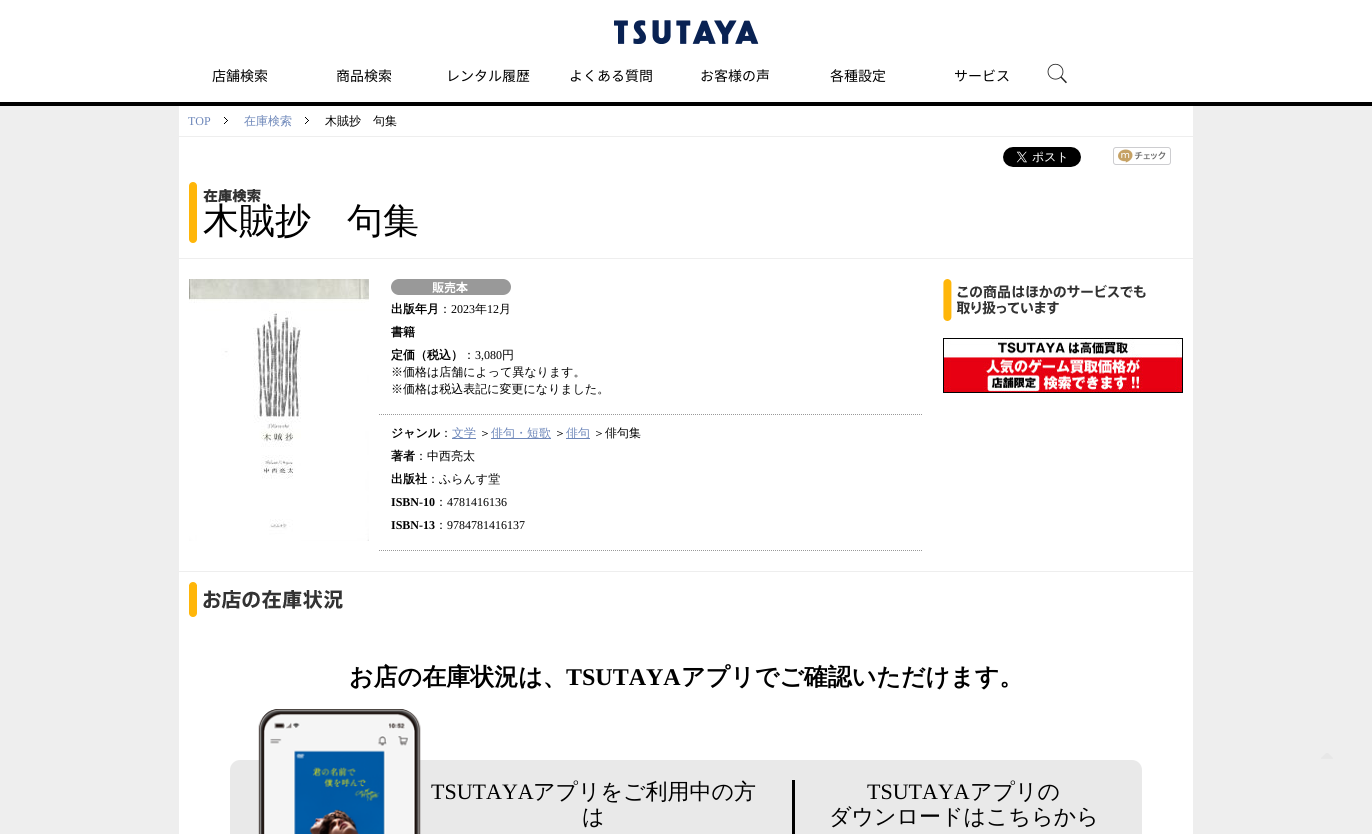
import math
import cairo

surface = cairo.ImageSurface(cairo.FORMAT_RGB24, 1372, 834)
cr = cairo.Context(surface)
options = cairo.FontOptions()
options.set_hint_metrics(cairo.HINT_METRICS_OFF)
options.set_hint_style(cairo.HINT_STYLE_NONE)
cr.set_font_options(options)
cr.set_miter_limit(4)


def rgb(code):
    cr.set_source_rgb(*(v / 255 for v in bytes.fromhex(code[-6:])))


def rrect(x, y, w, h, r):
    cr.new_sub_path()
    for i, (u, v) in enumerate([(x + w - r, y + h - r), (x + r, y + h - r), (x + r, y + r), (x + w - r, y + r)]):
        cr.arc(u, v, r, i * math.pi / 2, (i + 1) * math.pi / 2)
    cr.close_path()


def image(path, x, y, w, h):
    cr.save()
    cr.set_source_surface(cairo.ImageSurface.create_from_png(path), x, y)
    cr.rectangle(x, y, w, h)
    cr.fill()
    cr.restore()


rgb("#ffffff")
cr.paint()
rgb("#eeeeee")
cr.rectangle(0, 106, 1372, 728)
cr.fill()
image("img/1.png", 614, 20, 145, 24)
rgb("#000000")
cr.rectangle(0, 102, 1372, 4)
cr.fill()
image("img/2.png", 1047, 63, 20, 21)
image("img/3.png", 1321, 753, 12, 6)
rgb("#ffffff")
cr.rectangle(179, 106, 1014, 728)
cr.fill()
rgb("#eeeeee")
cr.rectangle(179, 136, 1014, 1)
cr.fill()
image("img/4.png", 224, 117, 4, 7)
image("img/4.png", 305, 117, 4, 7)
image("img/5.png", 1003, 147, 78, 20)
image("img/6.png", 1113, 147, 58, 18)
image("img/7.png", 189, 182, 8, 26)
image("img/8.png", 189, 208, 8, 35)
image("img/9.png", 203, 189, 58, 14)
cr.rectangle(179, 258, 1014, 1)
cr.fill()
image("img/10.png", 189, 279, 180, 262)
cr.new_path()
cr.move_to(379, 414.5)
cr.line_to(923, 414.5)
rgb("#999999")
cr.set_line_width(1)
cr.set_dash([1, 1])
cr.stroke()
image("img/11.png", 391, 279, 120, 16)
cr.new_path()
cr.move_to(379, 550.5)
cr.line_to(923, 550.5)
cr.stroke()
for x, y, w, h, color in [
    (452, 438, 24, 1, "#6c86b9"),
    (491, 438, 60, 1, "#6c86b9"),
    (566, 438, 24, 1, "#6c86b9"),
]:
    rgb(color)
    cr.rectangle(x, y, w, h)
    cr.fill()
image("img/12.png", 943, 279, 9, 26)
image("img/13.png", 943, 305, 9, 16)
image("img/14.png", 957, 284, 189, 31)
image("img/15.png", 943, 338, 240, 55)
rgb("#eeeeee")
cr.rectangle(179, 571, 1014, 1)
cr.fill()
image("img/16.png", 189, 582, 8, 3)
image("img/17.png", 189, 585, 8, 32)
image("img/18.png", 203, 590, 140, 19)
rgb("#e9e9e9")
rrect(230, 760, 912, 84, 10)
cr.fill()
image("img/19.png", 258, 709, 163, 125)
rgb("#000000")
cr.rectangle(792, 780, 3, 54)
cr.fill()
cr.select_font_face("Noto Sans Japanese")
cr.set_font_size(14)
for x, y, s in [
    (212, 81, "店舗検索"),
    (336, 81, "商品検索"),
    (446, 81, "レンタル履歴"),
    (569, 81, "よくある質問"),
    (700, 81, "お客様の声"),
    (830, 81, "各種設定"),
    (954, 81, "サービス"),
]:
    cr.move_to(x, y)
    cr.show_text(s)
cr.select_font_face("Liberation Serif")
cr.set_font_size(12)
rgb("#6c86b9")
cr.move_to(188, 125)
cr.show_text("TOP")
cr.select_font_face("WenQuanYi Zen Hei Medium")
cr.move_to(244, 125)
cr.show_text("在庫検索")
rgb("#000000")
cr.move_to(325, 125)
cr.show_text("木賊抄　句集")
cr.set_font_size(36)
cr.move_to(203, 233)
cr.show_text("木賊抄　句集")
cr.select_font_face("WenQuanYi Zen Hei", cairo.FONT_SLANT_NORMAL, cairo.FONT_WEIGHT_BOLD)
cr.set_font_size(12)
cr.move_to(391, 313)
cr.show_text("出版年月")
cr.select_font_face("WenQuanYi Zen Hei Medium")
cr.move_to(439, 313)
cr.show_text("：")
cr.select_font_face("Liberation Serif")
cr.move_to(451, 313)
cr.show_text("2023")
cr.select_font_face("WenQuanYi Zen Hei Medium")
cr.move_to(475, 313)
cr.show_text("年")
cr.select_font_face("Liberation Serif")
cr.move_to(487, 313)
cr.show_text("12")
cr.select_font_face("WenQuanYi Zen Hei Medium")
cr.move_to(499, 313)
cr.show_text("月")
cr.select_font_face("WenQuanYi Zen Hei", cairo.FONT_SLANT_NORMAL, cairo.FONT_WEIGHT_BOLD)
cr.move_to(391, 336)
cr.show_text("書籍")
cr.move_to(391, 359)
cr.show_text("定価（税込）")
cr.select_font_face("WenQuanYi Zen Hei Medium")
cr.move_to(463, 359)
cr.show_text("：")
cr.select_font_face("Liberation Serif")
cr.move_to(475, 359)
cr.show_text("3,080")
cr.select_font_face("WenQuanYi Zen Hei Medium")
for x, y, s in [
    (502, 359, "円"),
    (391, 376, "※価格は店舗によって異なります。"),
    (391, 393, "※価格は税込表記に変更になりました。"),
]:
    cr.move_to(x, y)
    cr.show_text(s)
cr.select_font_face("WenQuanYi Zen Hei", cairo.FONT_SLANT_NORMAL, cairo.FONT_WEIGHT_BOLD)
cr.move_to(391, 437)
cr.show_text("ジャンル")
cr.select_font_face("WenQuanYi Zen Hei Medium")
cr.move_to(440, 437)
cr.show_text("：")
rgb("#6c86b9")
cr.move_to(452, 437)
cr.show_text("文学")
rgb("#000000")
cr.move_to(479, 437)
cr.show_text("＞")
rgb("#6c86b9")
cr.move_to(491, 437)
cr.show_text("俳句・短歌")
rgb("#000000")
cr.move_to(554, 437)
cr.show_text("＞")
rgb("#6c86b9")
cr.move_to(566, 437)
cr.show_text("俳句")
rgb("#000000")
cr.move_to(593, 437)
cr.show_text("＞俳句集")
cr.select_font_face("WenQuanYi Zen Hei", cairo.FONT_SLANT_NORMAL, cairo.FONT_WEIGHT_BOLD)
cr.move_to(391, 460)
cr.show_text("著者")
cr.select_font_face("WenQuanYi Zen Hei Medium")
cr.move_to(415, 460)
cr.show_text("：中西亮太")
cr.select_font_face("WenQuanYi Zen Hei", cairo.FONT_SLANT_NORMAL, cairo.FONT_WEIGHT_BOLD)
cr.move_to(391, 483)
cr.show_text("出版社")
cr.select_font_face("WenQuanYi Zen Hei Medium")
cr.move_to(427, 483)
cr.show_text("：ふらんす堂")
cr.select_font_face("Liberation Serif", cairo.FONT_SLANT_NORMAL, cairo.FONT_WEIGHT_BOLD)
cr.move_to(391, 506)
cr.show_text("ISBN-10")
cr.select_font_face("WenQuanYi Zen Hei Medium")
cr.move_to(435, 506)
cr.show_text("：")
cr.select_font_face("Liberation Serif")
cr.move_to(447, 506)
cr.show_text("4781416136")
cr.select_font_face("Liberation Serif", cairo.FONT_SLANT_NORMAL, cairo.FONT_WEIGHT_BOLD)
cr.move_to(391, 529)
cr.show_text("ISBN-13")
cr.select_font_face("WenQuanYi Zen Hei Medium")
cr.move_to(435, 529)
cr.show_text("：")
cr.select_font_face("Liberation Serif")
cr.move_to(447, 529)
cr.show_text("9784781416137")
cr.select_font_face("WenQuanYi Zen Hei", cairo.FONT_SLANT_NORMAL, cairo.FONT_WEIGHT_BOLD)
cr.set_font_size(24)
cr.move_to(349, 685)
cr.show_text("お店の在庫状況は、")
cr.select_font_face("Liberation Serif", cairo.FONT_SLANT_NORMAL, cairo.FONT_WEIGHT_BOLD)
cr.move_to(566, 685)
cr.show_text("TSUTAYA")
cr.select_font_face("WenQuanYi Zen Hei", cairo.FONT_SLANT_NORMAL, cairo.FONT_WEIGHT_BOLD)
cr.move_to(681, 685)
cr.show_text("アプリでご確認いただけます。")
cr.select_font_face("Liberation Serif")
cr.set_font_size(22)
cr.move_to(431, 799)
cr.show_text("TSUTAYA")
cr.select_font_face("WenQuanYi Zen Hei Medium")
cr.move_to(533, 799)
cr.show_text("アプリをご利用中の方")
cr.move_to(582, 824)
cr.show_text("は")
cr.select_font_face("Liberation Serif")
cr.move_to(867, 799)
cr.show_text("TSUTAYA")
cr.select_font_face("WenQuanYi Zen Hei Medium")
cr.move_to(970, 799)
cr.show_text("アプリの")
cr.move_to(829, 824)
cr.show_text("ダウンロードはこちらから")
surface.write_to_png("page.png")
